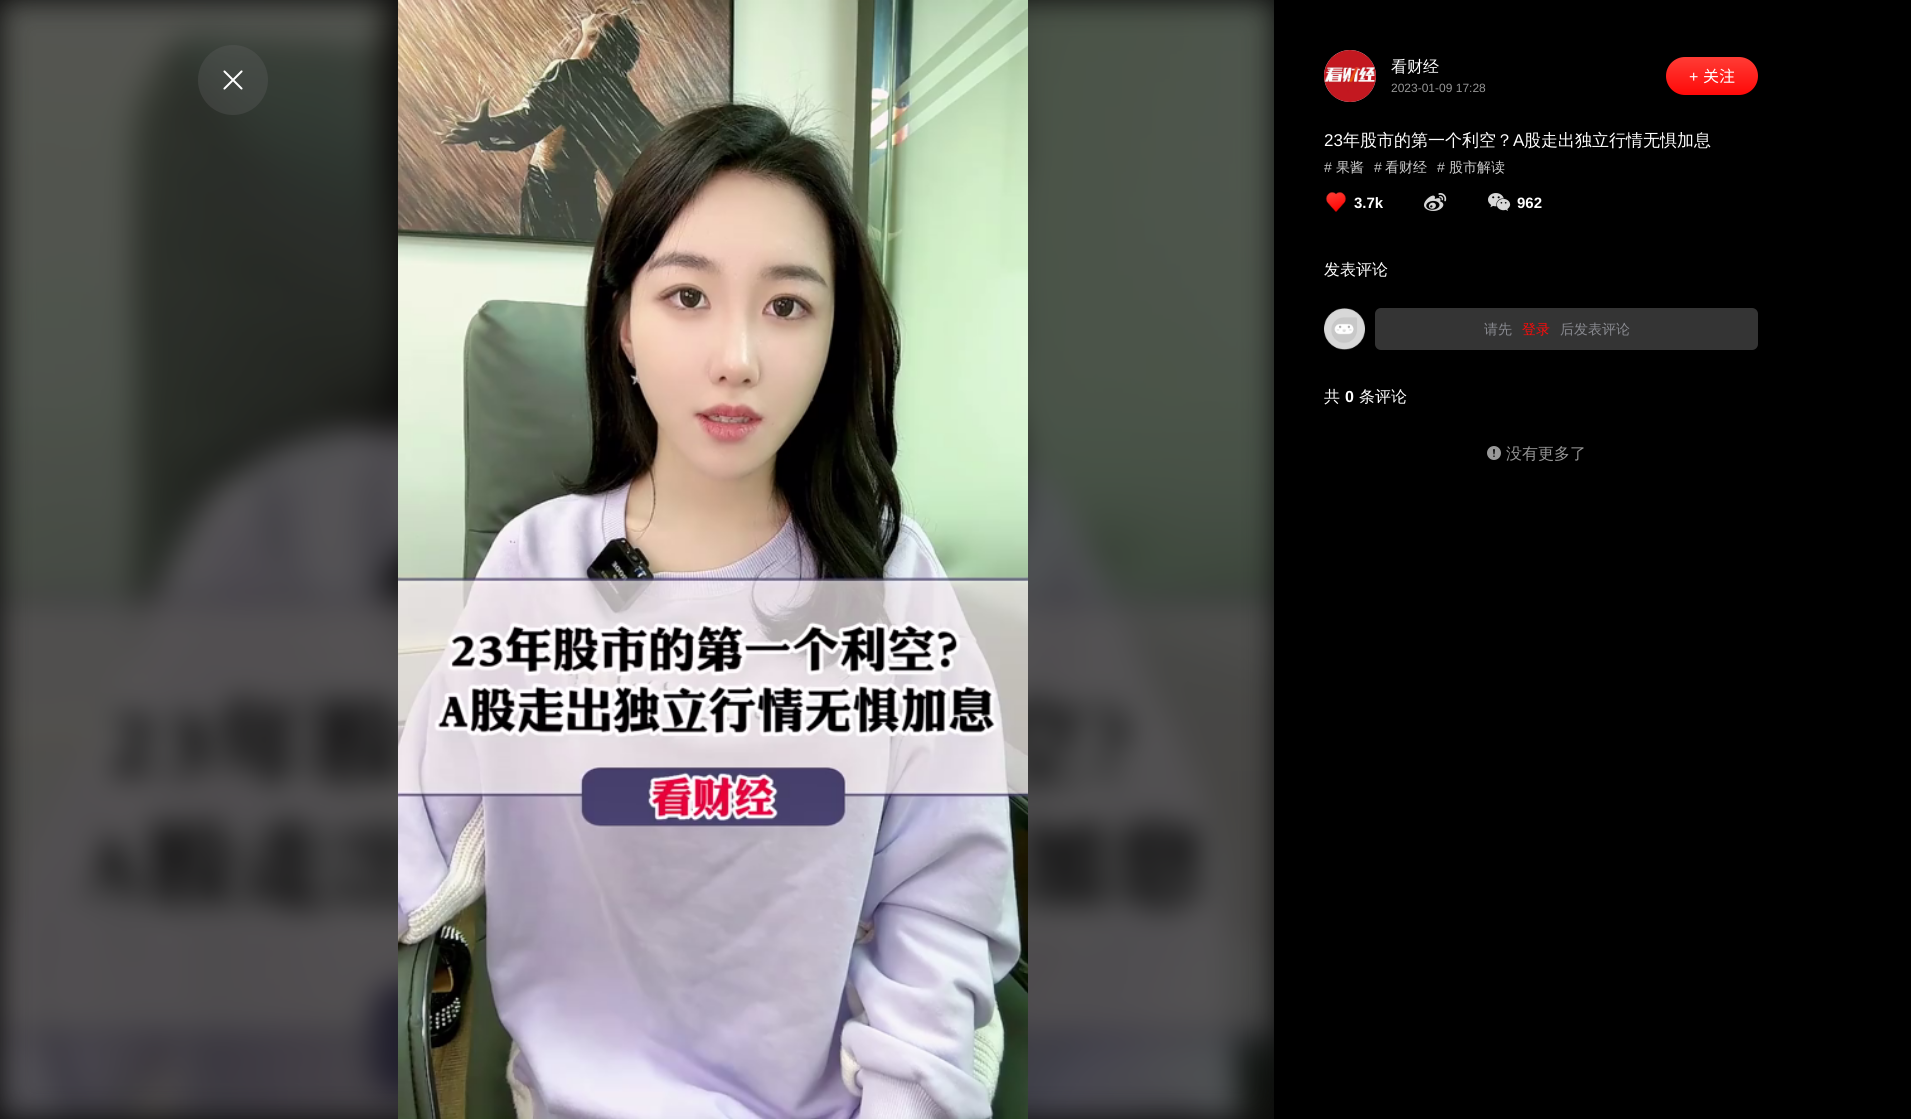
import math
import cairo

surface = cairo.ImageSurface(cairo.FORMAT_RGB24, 1911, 1119)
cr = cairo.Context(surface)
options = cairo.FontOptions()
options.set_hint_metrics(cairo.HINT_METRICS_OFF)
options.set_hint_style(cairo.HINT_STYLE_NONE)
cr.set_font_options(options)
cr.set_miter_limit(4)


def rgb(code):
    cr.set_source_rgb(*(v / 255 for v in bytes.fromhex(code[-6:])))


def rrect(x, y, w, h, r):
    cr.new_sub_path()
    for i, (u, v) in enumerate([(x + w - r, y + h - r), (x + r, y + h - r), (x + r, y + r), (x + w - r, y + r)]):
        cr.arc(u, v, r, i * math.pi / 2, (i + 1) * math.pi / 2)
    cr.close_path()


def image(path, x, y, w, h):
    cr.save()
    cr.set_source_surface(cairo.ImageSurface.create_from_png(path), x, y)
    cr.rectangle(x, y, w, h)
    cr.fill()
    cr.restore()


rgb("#000000")
cr.paint()
rgb("#0c0c0c")
cr.rectangle(0, 0, 1274, 1119)
cr.fill()
image("img/1.png", 0, 0, 1274, 1119)
cr.set_source_rgba(0.392, 0.392, 0.392, 0.3)
cr.arc(233, 80, 35, 0, 2 * math.pi)
cr.fill()
image("img/2.png", 223, 70, 20, 20)
image("img/3.png", 398, 0, 630, 1119)
rgb("#c0c4cc")
cr.arc(1350, 76, 26, 0, 2 * math.pi)
cr.fill()
image("img/4.png", 1324, 50, 52, 52)
gradient = cairo.LinearGradient(1712, 57, 1712, 95)
gradient.add_color_stop_rgba(0, 1, 0.235, 0.208, 1)
gradient.add_color_stop_rgba(1, 1, 0.035, 0.031, 1)
cr.set_source(gradient)
rrect(1666, 57, 92, 38, 19)
cr.fill()
image("img/5.png", 1325, 192, 22, 20)
image("img/6.png", 1424, 193, 23, 18)
image("img/7.png", 1488, 193, 23, 18)
image("img/8.png", 1324, 308, 41, 42)
rgb("#343434")
rrect(1375, 308, 383, 42, 6)
cr.fill()
image("img/9.png", 1487, 446, 14, 14)
cr.select_font_face("WenQuanYi Zen Hei Medium")
cr.set_font_size(16)
rgb("#ffffff")
cr.move_to(1391, 72)
cr.show_text("看财经")
cr.select_font_face("Liberation Sans")
cr.set_font_size(12)
rgb("#959595")
cr.move_to(1391, 92)
cr.show_text("2023-01-09 17:28")
cr.set_font_size(16)
rgb("#ffffff")
cr.move_to(1689, 82)
cr.show_text("+")
cr.select_font_face("Noto Sans CJK SC")
cr.move_to(1703, 82)
cr.show_text("关注")
cr.select_font_face("Liberation Sans")
cr.set_font_size(17)
cr.move_to(1324, 146)
cr.show_text("23")
cr.select_font_face("WenQuanYi Zen Hei Medium")
cr.move_to(1343, 146)
cr.show_text("年股市的第一个利空？")
cr.select_font_face("Liberation Sans")
cr.move_to(1513, 146)
cr.show_text("A")
cr.select_font_face("WenQuanYi Zen Hei Medium")
cr.move_to(1524, 146)
cr.show_text("股走出独立行情无惧加息")
cr.select_font_face("Liberation Sans")
cr.set_font_size(14)
rgb("#cccccc")
cr.move_to(1324, 172)
cr.show_text("#")
cr.select_font_face("WenQuanYi Zen Hei Medium")
cr.move_to(1336, 172)
cr.show_text("果酱")
cr.select_font_face("Liberation Sans")
cr.move_to(1374, 172)
cr.show_text("#")
cr.select_font_face("WenQuanYi Zen Hei Medium")
cr.move_to(1385, 172)
cr.show_text("看财经")
cr.select_font_face("Liberation Sans")
cr.move_to(1437, 172)
cr.show_text("#")
cr.select_font_face("WenQuanYi Zen Hei Medium")
cr.move_to(1449, 172)
cr.show_text("股市解读")
cr.select_font_face("Liberation Sans", cairo.FONT_SLANT_NORMAL, cairo.FONT_WEIGHT_BOLD)
cr.set_font_size(15)
rgb("#ffffff")
cr.move_to(1354, 208)
cr.show_text("3.7k")
cr.move_to(1517, 208)
cr.show_text("962")
cr.select_font_face("WenQuanYi Zen Hei Medium")
cr.set_font_size(16)
cr.move_to(1324, 275)
cr.show_text("发表评论")
cr.set_font_size(14)
rgb("#88898f")
cr.move_to(1484, 334)
cr.show_text("请先")
rgb("#ff0908")
cr.move_to(1522, 334)
cr.show_text("登录")
rgb("#88898f")
cr.move_to(1560, 334)
cr.show_text("后发表评论")
cr.set_font_size(16)
rgb("#ffffff")
cr.move_to(1324, 402)
cr.show_text("共")
cr.select_font_face("Liberation Sans", cairo.FONT_SLANT_NORMAL, cairo.FONT_WEIGHT_BOLD)
cr.move_to(1345, 402)
cr.show_text("0")
cr.select_font_face("WenQuanYi Zen Hei Medium")
cr.move_to(1359, 402)
cr.show_text("条评论")
rgb("#959595")
cr.move_to(1506, 459)
cr.show_text("没有更多了")
surface.write_to_png("page.png")
